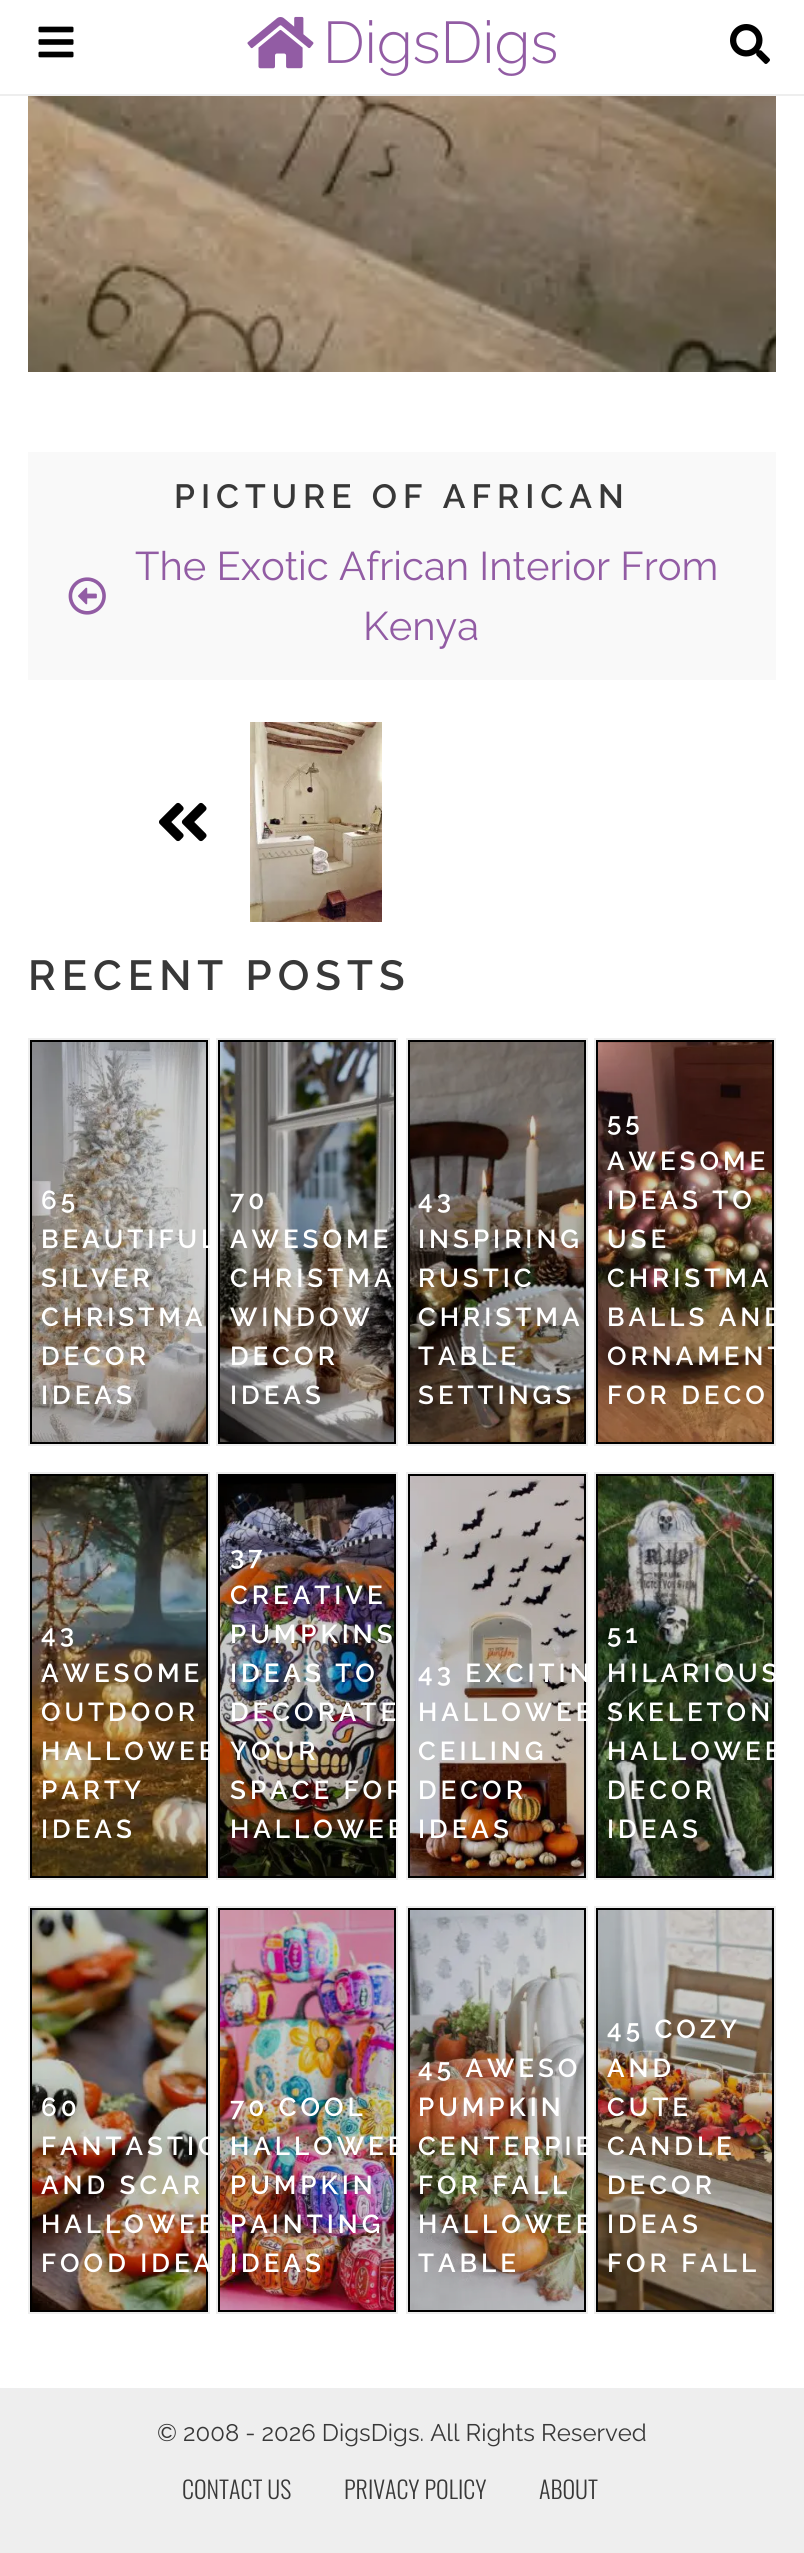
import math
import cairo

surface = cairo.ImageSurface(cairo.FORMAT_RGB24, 804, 2553)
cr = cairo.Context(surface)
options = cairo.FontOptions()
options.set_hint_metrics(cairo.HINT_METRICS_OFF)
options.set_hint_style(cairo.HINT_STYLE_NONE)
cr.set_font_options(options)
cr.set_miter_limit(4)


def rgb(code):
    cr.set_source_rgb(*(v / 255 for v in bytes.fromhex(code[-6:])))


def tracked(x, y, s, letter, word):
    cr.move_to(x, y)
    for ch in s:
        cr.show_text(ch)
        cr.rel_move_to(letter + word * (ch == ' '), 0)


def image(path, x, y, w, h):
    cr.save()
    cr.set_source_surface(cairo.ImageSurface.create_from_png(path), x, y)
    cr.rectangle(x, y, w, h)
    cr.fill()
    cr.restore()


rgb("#ffffff")
cr.paint()
rgb("#eeeeee")
cr.rectangle(0, 94, 804, 2)
cr.fill()
image("img/1.png", 38, 26, 36, 32)
image("img/2.png", 247, 16, 309, 60)
image("img/3.png", 730, 24, 40, 40)
image("img/4.png", 28, 96, 748, 276)
rgb("#f9f9f9")
cr.rectangle(28, 452, 748, 228)
cr.fill()
image("img/5.png", 68, 577, 38, 38)
image("img/6.png", 159, 802, 48, 40)
image("img/7.png", 250, 722, 132, 200)
rgb("#000000")
cr.rectangle(29, 1039, 180, 406)
cr.fill_preserve()
rgb("#eeeeee")
cr.stroke()
image("img/8.png", 32, 1042, 174, 400)
rgb("#000000")
cr.rectangle(217, 1039, 180, 406)
cr.fill_preserve()
rgb("#eeeeee")
cr.stroke()
image("img/9.png", 220, 1042, 174, 400)
rgb("#000000")
cr.rectangle(407, 1039, 180, 406)
cr.fill_preserve()
rgb("#eeeeee")
cr.stroke()
image("img/10.png", 410, 1042, 174, 400)
rgb("#000000")
cr.rectangle(595, 1039, 180, 406)
cr.fill_preserve()
rgb("#eeeeee")
cr.stroke()
image("img/11.png", 598, 1042, 174, 400)
rgb("#000000")
cr.rectangle(29, 1473, 180, 406)
cr.fill_preserve()
rgb("#eeeeee")
cr.stroke()
image("img/12.png", 32, 1476, 174, 400)
rgb("#000000")
cr.rectangle(217, 1473, 180, 406)
cr.fill_preserve()
rgb("#eeeeee")
cr.stroke()
image("img/13.png", 220, 1483, 174, 393)
rgb("#000000")
cr.rectangle(407, 1473, 180, 406)
cr.fill_preserve()
rgb("#eeeeee")
cr.stroke()
image("img/14.png", 410, 1476, 174, 400)
rgb("#000000")
cr.rectangle(595, 1473, 180, 406)
cr.fill_preserve()
rgb("#eeeeee")
cr.stroke()
image("img/15.png", 598, 1476, 174, 400)
rgb("#000000")
cr.rectangle(29, 1907, 180, 406)
cr.fill_preserve()
rgb("#eeeeee")
cr.stroke()
image("img/16.png", 32, 1910, 174, 400)
rgb("#000000")
cr.rectangle(217, 1907, 180, 406)
cr.fill_preserve()
rgb("#eeeeee")
cr.stroke()
image("img/17.png", 220, 1910, 174, 400)
rgb("#000000")
cr.rectangle(407, 1907, 180, 406)
cr.fill_preserve()
rgb("#eeeeee")
cr.stroke()
image("img/18.png", 410, 1910, 174, 400)
rgb("#000000")
cr.rectangle(595, 1907, 180, 406)
cr.fill_preserve()
rgb("#eeeeee")
cr.stroke()
image("img/19.png", 598, 1910, 174, 400)
cr.rectangle(0, 2388, 804, 165)
cr.fill()
cr.select_font_face("Raleway Thin")
cr.set_font_size(33.6)
rgb("#383838")
tracked(174, 508, "PICTURE OF AFRICAN", 6, 0)
cr.select_font_face("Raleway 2 Thin")
cr.set_font_size(40)
rgb("#925ca4")
cr.move_to(135, 580)
cr.show_text("The Exotic African Interior From")
cr.move_to(363, 640)
cr.show_text("Kenya")
cr.select_font_face("Raleway Thin")
cr.set_font_size(42)
rgb("#383838")
tracked(28, 990, "RECENT POSTS", 6, 0)
cr.set_font_size(26)
rgb("#ffffff")
for x, y, s in [
    (41, 1209, "65"),
    (41, 1248, "BEAUTIFUL"),
    (41, 1287, "SILVER"),
    (41, 1326, "CHRISTMA"),
    (41, 1365, "DECOR"),
    (41, 1404, "IDEAS"),
    (230, 1209, "70"),
    (230, 1248, "AWESOME"),
    (230, 1287, "CHRISTMA"),
    (230, 1326, "WINDOW"),
    (230, 1365, "DECOR"),
    (230, 1404, "IDEAS"),
    (418, 1209, "43"),
    (418, 1248, "INSPIRING"),
    (418, 1287, "RUSTIC"),
    (418, 1326, "CHRISTMA"),
    (418, 1365, "TABLE"),
    (418, 1404, "SETTINGS"),
    (607, 1131, "55"),
    (607, 1170, "AWESOME"),
    (607, 1209, "IDEAS TO"),
    (607, 1248, "USE"),
    (607, 1287, "CHRISTMA"),
    (607, 1326, "BALLS AND"),
    (607, 1365, "ORNAMENT"),
    (607, 1404, "FOR DECO"),
    (41, 1643, "43"),
    (41, 1682, "AWESOME"),
    (41, 1721, "OUTDOOR"),
    (41, 1760, "HALLOWEE"),
    (41, 1799, "PARTY"),
    (41, 1838, "IDEAS"),
    (230, 1565, "37"),
    (230, 1604, "CREATIVE"),
    (230, 1643, "PUMPKINS"),
    (230, 1682, "IDEAS TO"),
    (230, 1721, "DECORATE"),
    (230, 1760, "YOUR"),
    (230, 1799, "SPACE FOR"),
    (230, 1838, "HALLOWEE"),
    (418, 1682, "43 EXCITIN"),
    (418, 1721, "HALLOWEE"),
    (418, 1760, "CEILING"),
    (418, 1799, "DECOR"),
    (418, 1838, "IDEAS"),
    (607, 1643, "51"),
    (607, 1682, "HILARIOUS"),
    (607, 1721, "SKELETON"),
    (607, 1760, "HALLOWEE"),
    (607, 1799, "DECOR"),
    (607, 1838, "IDEAS"),
    (41, 2116, "60"),
    (41, 2155, "FANTASTIC"),
    (41, 2194, "AND SCAR"),
    (41, 2233, "HALLOWEE"),
    (41, 2272, "FOOD IDEA"),
    (230, 2116, "70 COOL"),
    (230, 2155, "HALLOWEE"),
    (230, 2194, "PUMPKIN"),
    (230, 2233, "PAINTING"),
    (230, 2272, "IDEAS"),
    (418, 2077, "45 AWESO"),
    (418, 2116, "PUMPKIN"),
    (418, 2155, "CENTERPIE"),
    (418, 2194, "FOR FALL"),
    (418, 2233, "HALLOWEE"),
    (418, 2272, "TABLE"),
    (607, 2038, "45 COZY"),
    (607, 2077, "AND"),
    (607, 2116, "CUTE"),
    (607, 2155, "CANDLE"),
    (607, 2194, "DECOR"),
    (607, 2233, "IDEAS"),
    (607, 2272, "FOR FALL"),
]:
    tracked(x, y, s, 4, 0)
cr.select_font_face("Raleway 2 Thin")
cr.set_font_size(24)
rgb("#383838")
cr.move_to(157, 2441)
cr.show_text("© 2008 - 2026 DigsDigs. All Rights Reserved")
cr.select_font_face("Oswald Light")
for x, y, s in [
    (182, 2499, "CONTACT US"),
    (344, 2499, "PRIVACY POLICY"),
    (539, 2499, "ABOUT"),
]:
    cr.move_to(x, y)
    cr.show_text(s)
surface.write_to_png("page.png")
